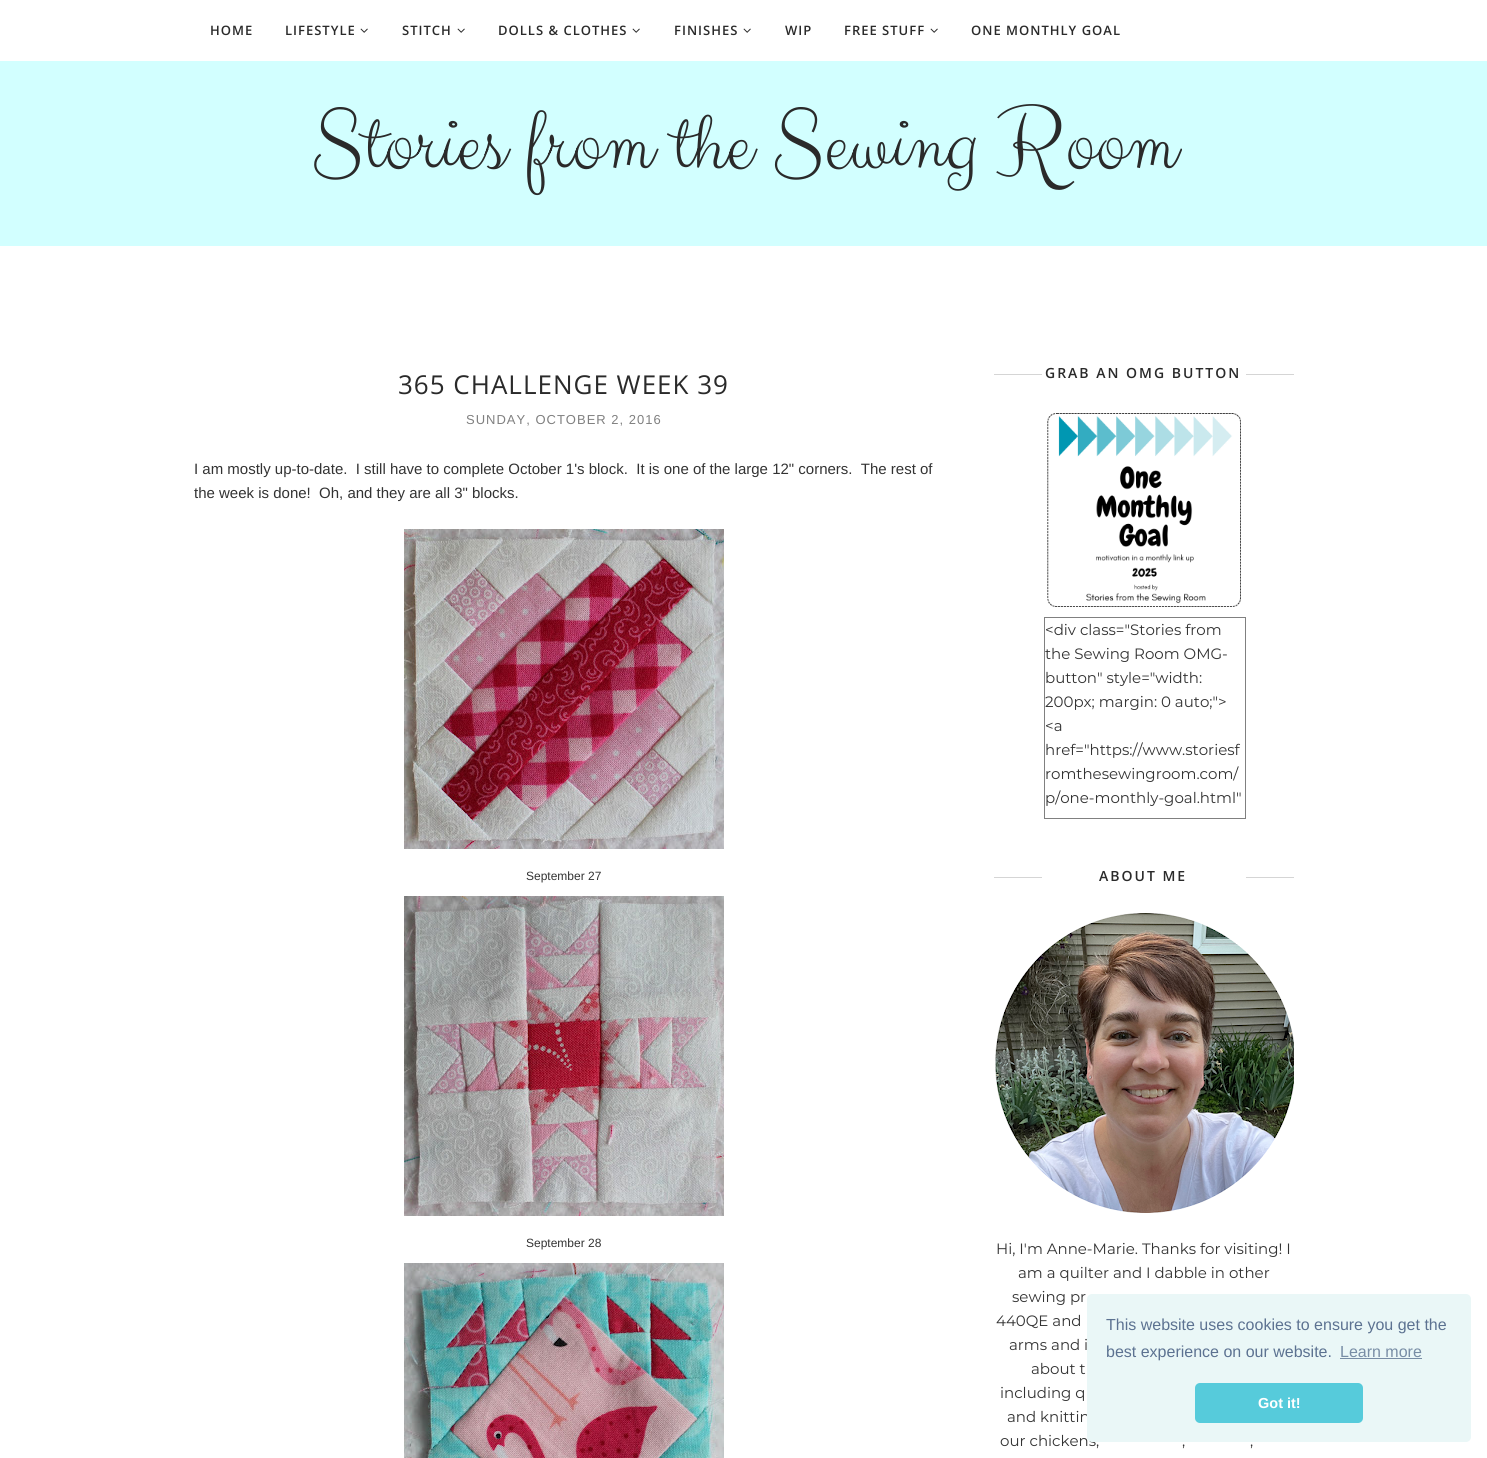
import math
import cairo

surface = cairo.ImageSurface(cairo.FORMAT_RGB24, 1487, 1458)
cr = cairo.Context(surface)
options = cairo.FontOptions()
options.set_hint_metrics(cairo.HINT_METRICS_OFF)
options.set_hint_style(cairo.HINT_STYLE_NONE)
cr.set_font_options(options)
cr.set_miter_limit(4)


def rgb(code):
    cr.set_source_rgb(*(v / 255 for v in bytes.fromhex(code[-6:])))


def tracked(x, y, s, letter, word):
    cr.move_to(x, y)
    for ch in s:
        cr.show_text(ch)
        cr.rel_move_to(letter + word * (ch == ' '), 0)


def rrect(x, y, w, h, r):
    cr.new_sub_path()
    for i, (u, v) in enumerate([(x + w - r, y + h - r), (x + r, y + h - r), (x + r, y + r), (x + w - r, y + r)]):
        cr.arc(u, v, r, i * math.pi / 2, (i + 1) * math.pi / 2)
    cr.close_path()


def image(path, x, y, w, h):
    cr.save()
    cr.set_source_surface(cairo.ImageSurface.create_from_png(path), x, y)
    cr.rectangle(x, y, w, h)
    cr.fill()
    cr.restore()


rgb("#ffffff")
cr.paint()
image("img/1.png", 360, 28, 8, 5)
image("img/1.png", 457, 28, 8, 5)
image("img/1.png", 632, 28, 8, 5)
image("img/1.png", 743, 28, 8, 5)
image("img/1.png", 930, 28, 8, 5)
rgb("#d2ffff")
cr.rectangle(0, 61, 1487, 185)
cr.fill()
image("img/2.png", 404, 529, 320, 320)
image("img/3.png", 404, 896, 320, 320)
image("img/4.png", 404, 1263, 320, 195)
rgb("#d5d5d5")
cr.rectangle(994, 374, 48, 1)
cr.fill()
cr.rectangle(1246, 374, 48, 1)
cr.fill()
image("img/5.png", 1047, 413, 194, 194)
cr.rectangle(1044.5, 617.5, 201, 201)
rgb("#808080")
cr.set_line_width(1)
cr.stroke()
rgb("#d5d5d5")
cr.rectangle(994, 877, 48, 1)
cr.fill()
cr.rectangle(1246, 877, 48, 1)
cr.fill()
image("img/6.png", 995, 913, 299, 300)
cr.select_font_face("Open Sans SemiBold")
cr.set_font_size(13)
rgb("#2a2a2a")
for x, y, s in [
    (210, 35, "HOME"),
    (285, 35, "LIFESTYLE"),
    (402, 35, "STITCH"),
    (498, 35, "DOLLS & CLOTHES"),
    (674, 35, "FINISHES"),
    (785, 35, "WIP"),
    (844, 35, "FREE STUFF"),
    (971, 35, "ONE MONTHLY GOAL"),
]:
    tracked(x, y, s, 1, 0)
cr.select_font_face("Clicker Script")
cr.set_font_size(90)
cr.move_to(311, 170)
cr.show_text("Stories from the Sewing Room")
cr.select_font_face("Open Sans")
cr.set_font_size(26)
tracked(398, 394, "365 CHALLENGE WEEK 39", 1, 0)
cr.select_font_face("Liberation Sans")
cr.set_font_size(13)
rgb("#808080")
tracked(466, 424, "SUNDAY, OCTOBER 2, 2016", 1, 0)
cr.set_font_size(15)
rgb("#333333")
cr.move_to(194, 474)
cr.show_text("I am mostly up-to-date.  I still have to complete October 1's block.  It is one of the large 12\" corners.  The rest of")
cr.move_to(194, 498)
cr.show_text("the week is done!  Oh, and they are all 3\" blocks.")
cr.set_font_size(12)
cr.move_to(526, 880)
cr.show_text("September 27")
cr.move_to(526, 1247)
cr.show_text("September 28")
cr.select_font_face("Open Sans SemiBold")
cr.set_font_size(14)
rgb("#2a2a2a")
tracked(1045, 378, "GRAB AN OMG BUTTON", 2, 0)
cr.select_font_face("Montserrat Thin")
cr.set_font_size(15)
rgb("#333333")
for x, y, s in [
    (1045, 635, "<div class=\"Stories from"),
    (1045, 659, "the Sewing Room OMG-"),
    (1045, 683, "button\" style=\"width:"),
    (1045, 707, "200px; margin: 0 auto;\">"),
    (1045, 731, "<a"),
    (1045, 755, "href=\"https://www.storiesf"),
    (1045, 779, "romthesewingroom.com/"),
    (1045, 803, "p/one-monthly-goal.html\""),
]:
    cr.move_to(x, y)
    cr.show_text(s)
cr.select_font_face("Open Sans SemiBold")
cr.set_font_size(14)
rgb("#2a2a2a")
tracked(1099, 881, "ABOUT ME", 2, 0)
cr.select_font_face("Montserrat Thin")
cr.set_font_size(15)
rgb("#333333")
for x, y, s in [
    (996, 1254, "Hi, I'm Anne-Marie. Thanks for visiting! I"),
    (1018, 1278, "am a quilter and I dabble in other"),
    (1012, 1302, "sewing pr"),
    (996, 1326, "440QE and"),
    (1009, 1350, "arms and i"),
    (1031, 1374, "about t"),
    (1000, 1398, "including q"),
    (1007, 1422, "and knittin"),
    (1000, 1446, "our chickens,"),
    (1182, 1446, ","),
    (1250, 1446, ","),
]:
    cr.move_to(x, y)
    cr.show_text(s)
rgb("#eaf7f7")
rrect(1087, 1294, 384, 148, 5)
cr.fill()
cr.select_font_face("Liberation Sans")
cr.set_font_size(16)
rgb("#5c7291")
cr.move_to(1106, 1330)
cr.show_text("This website uses cookies to ensure you get the")
cr.move_to(1106, 1357)
cr.show_text("best experience on our website.")
rgb("#788da5")
cr.move_to(1340, 1357)
cr.show_text("Learn more")
cr.rectangle(1340, 1358, 82, 1)
cr.fill()
rgb("#56cbdb")
rrect(1195, 1383, 168, 40, 5)
cr.fill()
cr.select_font_face("Liberation Sans", cairo.FONT_SLANT_NORMAL, cairo.FONT_WEIGHT_BOLD)
cr.set_font_size(14.5)
rgb("#ffffff")
cr.move_to(1258, 1408)
cr.show_text("Got it!")
surface.write_to_png("page.png")
